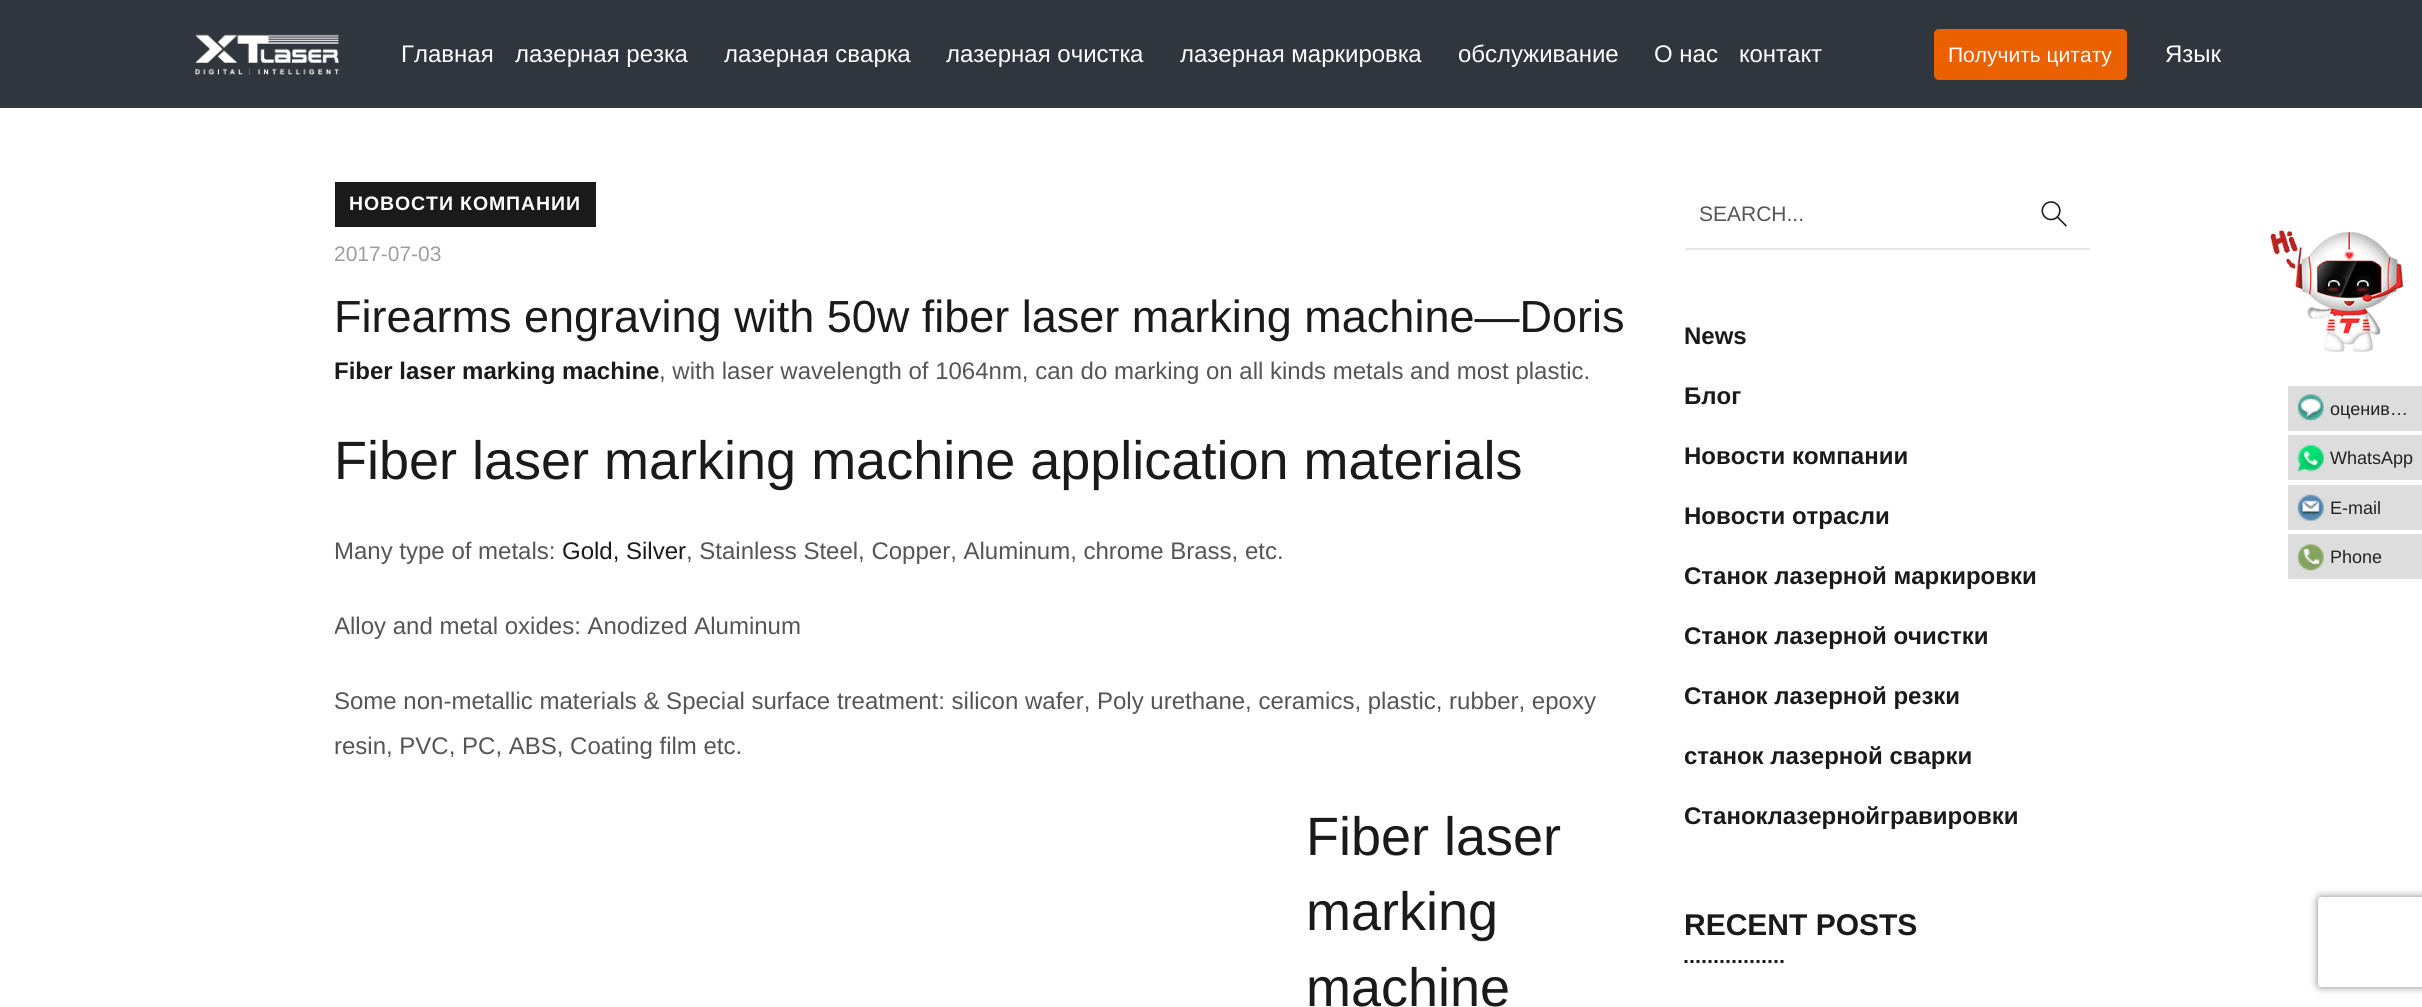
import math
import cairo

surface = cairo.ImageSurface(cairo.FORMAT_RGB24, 2422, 1007)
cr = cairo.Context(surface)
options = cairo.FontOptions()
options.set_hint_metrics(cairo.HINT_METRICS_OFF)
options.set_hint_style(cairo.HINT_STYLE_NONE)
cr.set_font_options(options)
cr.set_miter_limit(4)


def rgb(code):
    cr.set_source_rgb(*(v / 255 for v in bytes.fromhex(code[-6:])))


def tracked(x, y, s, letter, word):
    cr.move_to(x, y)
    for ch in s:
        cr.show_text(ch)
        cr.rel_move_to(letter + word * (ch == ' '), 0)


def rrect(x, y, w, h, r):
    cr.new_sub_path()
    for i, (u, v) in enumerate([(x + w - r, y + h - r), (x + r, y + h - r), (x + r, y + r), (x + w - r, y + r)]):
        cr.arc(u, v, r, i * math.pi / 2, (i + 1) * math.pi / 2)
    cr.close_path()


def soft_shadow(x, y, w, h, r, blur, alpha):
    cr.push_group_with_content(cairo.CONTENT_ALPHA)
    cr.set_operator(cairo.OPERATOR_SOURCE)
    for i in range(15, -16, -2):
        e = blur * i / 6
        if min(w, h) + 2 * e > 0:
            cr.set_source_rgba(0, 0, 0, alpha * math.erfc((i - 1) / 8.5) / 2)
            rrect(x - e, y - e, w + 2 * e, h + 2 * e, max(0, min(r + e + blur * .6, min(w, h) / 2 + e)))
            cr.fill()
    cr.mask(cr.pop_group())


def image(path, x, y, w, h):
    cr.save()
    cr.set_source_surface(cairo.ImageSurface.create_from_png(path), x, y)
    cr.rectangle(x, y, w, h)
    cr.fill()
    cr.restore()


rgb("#ffffff")
cr.paint()
rgb("#2f363d")
cr.rectangle(0, 0, 2422, 108)
cr.fill()
image("img/1.png", 194, 34, 146, 41)
rgb("#eb6100")
rrect(1934, 29, 193, 51, 5)
cr.fill()
rgb("#1a1a1a")
cr.rectangle(335, 182, 261, 45)
cr.fill()
rgb("#e6e6e6")
cr.rectangle(1685, 248, 405, 2)
cr.fill()
image("img/2.png", 2041, 201, 26, 26)
cr.new_path()
cr.move_to(1684.5, 961.5)
cr.line_to(1783.5, 961.5)
rgb("#1a1a1a")
cr.set_line_width(3)
cr.set_dash([3, 3])
cr.stroke()
image("img/3.png", 2270, 230, 134, 122)
rgb("#dddddd")
cr.rectangle(2288, 386, 134, 45)
cr.fill()
image("img/4.png", 2297, 394, 27, 27)
cr.rectangle(2288, 435, 134, 45)
cr.fill()
image("img/5.png", 2297, 445, 27, 27)
cr.rectangle(2288, 485, 134, 45)
cr.fill()
image("img/6.png", 2297, 494, 27, 27)
cr.rectangle(2288, 534, 134, 45)
cr.fill()
image("img/7.png", 2297, 544, 27, 27)
cr.save()
cr.set_fill_rule(cairo.FILL_RULE_EVEN_ODD)
cr.new_path()
cr.move_to(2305, 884)
cr.line_to(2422, 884)
cr.line_to(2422, 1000)
cr.line_to(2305, 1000)
cr.close_path()
cr.move_to(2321, 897)
cr.line_to(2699, 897)
cr.curve_to(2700.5, 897, 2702, 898.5, 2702, 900)
cr.line_to(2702, 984)
cr.curve_to(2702, 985.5, 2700.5, 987, 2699, 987)
cr.line_to(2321, 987)
cr.curve_to(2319.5, 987, 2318, 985.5, 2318, 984)
cr.line_to(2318, 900)
cr.curve_to(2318, 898.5, 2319.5, 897, 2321, 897)
cr.close_path()
cr.clip()
rgb("#808080")
soft_shadow(2318, 897, 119, 90, 3, 4, 1)
cr.restore()
cr.select_font_face("Liberation Sans")
cr.set_font_size(24)
rgb("#ffffff")
for x, y, s in [
    (401, 62, "Главная"),
    (515, 62, "лазерная резка"),
    (724, 62, "лазерная сварка"),
    (946, 62, "лазерная очистка"),
    (1180, 62, "лазерная маркировка"),
    (1458, 62, "обслуживание"),
    (1654, 62, "О нас"),
    (1739, 62, "контакт"),
]:
    cr.move_to(x, y)
    cr.show_text(s)
cr.set_font_size(21)
cr.move_to(1948, 62)
cr.show_text("Получить цитату")
cr.set_font_size(24)
cr.move_to(2165, 62)
cr.show_text("Язык")
cr.select_font_face("Liberation Sans", cairo.FONT_SLANT_NORMAL, cairo.FONT_WEIGHT_BOLD)
cr.set_font_size(19.5)
tracked(349, 210, "НОВОСТИ КОМПАНИИ", 0.9, 0)
cr.select_font_face("Liberation Sans")
cr.set_font_size(21)
rgb("#9f9e9e")
cr.move_to(334, 261)
cr.show_text("2017-07-03")
cr.set_font_size(45)
rgb("#1a1a1a")
cr.move_to(334, 332)
cr.show_text("Firearms engraving with 50w fiber laser marking machine—Doris")
cr.select_font_face("Liberation Sans", cairo.FONT_SLANT_NORMAL, cairo.FONT_WEIGHT_BOLD)
cr.set_font_size(24)
cr.move_to(334, 379)
cr.show_text("Fiber laser marking machine")
cr.select_font_face("Liberation Sans")
rgb("#555555")
cr.move_to(659, 379)
cr.show_text(", with laser wavelength of 1064nm, can do marking on all kinds metals and most plastic.")
cr.set_font_size(54)
rgb("#1a1a1a")
cr.move_to(334, 479)
cr.show_text("Fiber laser marking machine application materials")
cr.set_font_size(24)
rgb("#555555")
cr.move_to(334, 559)
cr.show_text("Many type of metals:")
rgb("#1a1a1a")
cr.move_to(562, 559)
cr.show_text("Gold, Silver")
rgb("#555555")
cr.move_to(686, 559)
cr.show_text(", Stainless Steel, Copper, Aluminum, chrome Brass, etc.")
cr.save()
cr.rectangle(335, 350, 1305, 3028)
cr.clip()
cr.move_to(334, 634)
cr.show_text("Alloy and metal oxides: Anodized Aluminum")
cr.restore()
cr.move_to(334, 709)
cr.show_text("Some non-metallic materials & Special surface treatment: silicon wafer, Poly urethane, ceramics, plastic, rubber, epoxy")
cr.move_to(334, 754)
cr.show_text("resin, PVC, PC, ABS, Coating film etc.")
cr.set_font_size(54)
rgb("#1a1a1a")
for x, y, s in [
    (1306, 855, "Fiber laser"),
    (1306, 930, "marking"),
    (1306, 1006, "machine"),
]:
    cr.move_to(x, y)
    cr.show_text(s)
cr.set_font_size(21)
rgb("#555555")
cr.move_to(1699, 221)
cr.show_text("SEARCH...")
cr.select_font_face("Liberation Sans", cairo.FONT_SLANT_NORMAL, cairo.FONT_WEIGHT_BOLD)
cr.set_font_size(24)
rgb("#1a1a1a")
for x, y, s in [
    (1684, 344, "News"),
    (1684, 404, "Блог"),
    (1684, 464, "Новости компании"),
    (1684, 524, "Новости отрасли"),
    (1684, 584, "Станок лазерной маркировки"),
    (1684, 644, "Станок лазерной очистки"),
    (1684, 704, "Станок лазерной резки"),
    (1684, 764, "станок лазерной сварки"),
    (1684, 824, "Станоклазернойгравировки"),
]:
    cr.move_to(x, y)
    cr.show_text(s)
cr.set_font_size(30)
cr.move_to(1684, 935)
cr.show_text("RECENT POSTS")
cr.select_font_face("Liberation Sans")
cr.set_font_size(18)
rgb("#222222")
for x, y, s in [
    (2330, 415, "оценив…"),
    (2330, 464, "WhatsApp"),
    (2330, 514, "E-mail"),
    (2330, 563, "Phone"),
]:
    cr.move_to(x, y)
    cr.show_text(s)
surface.write_to_png("page.png")
